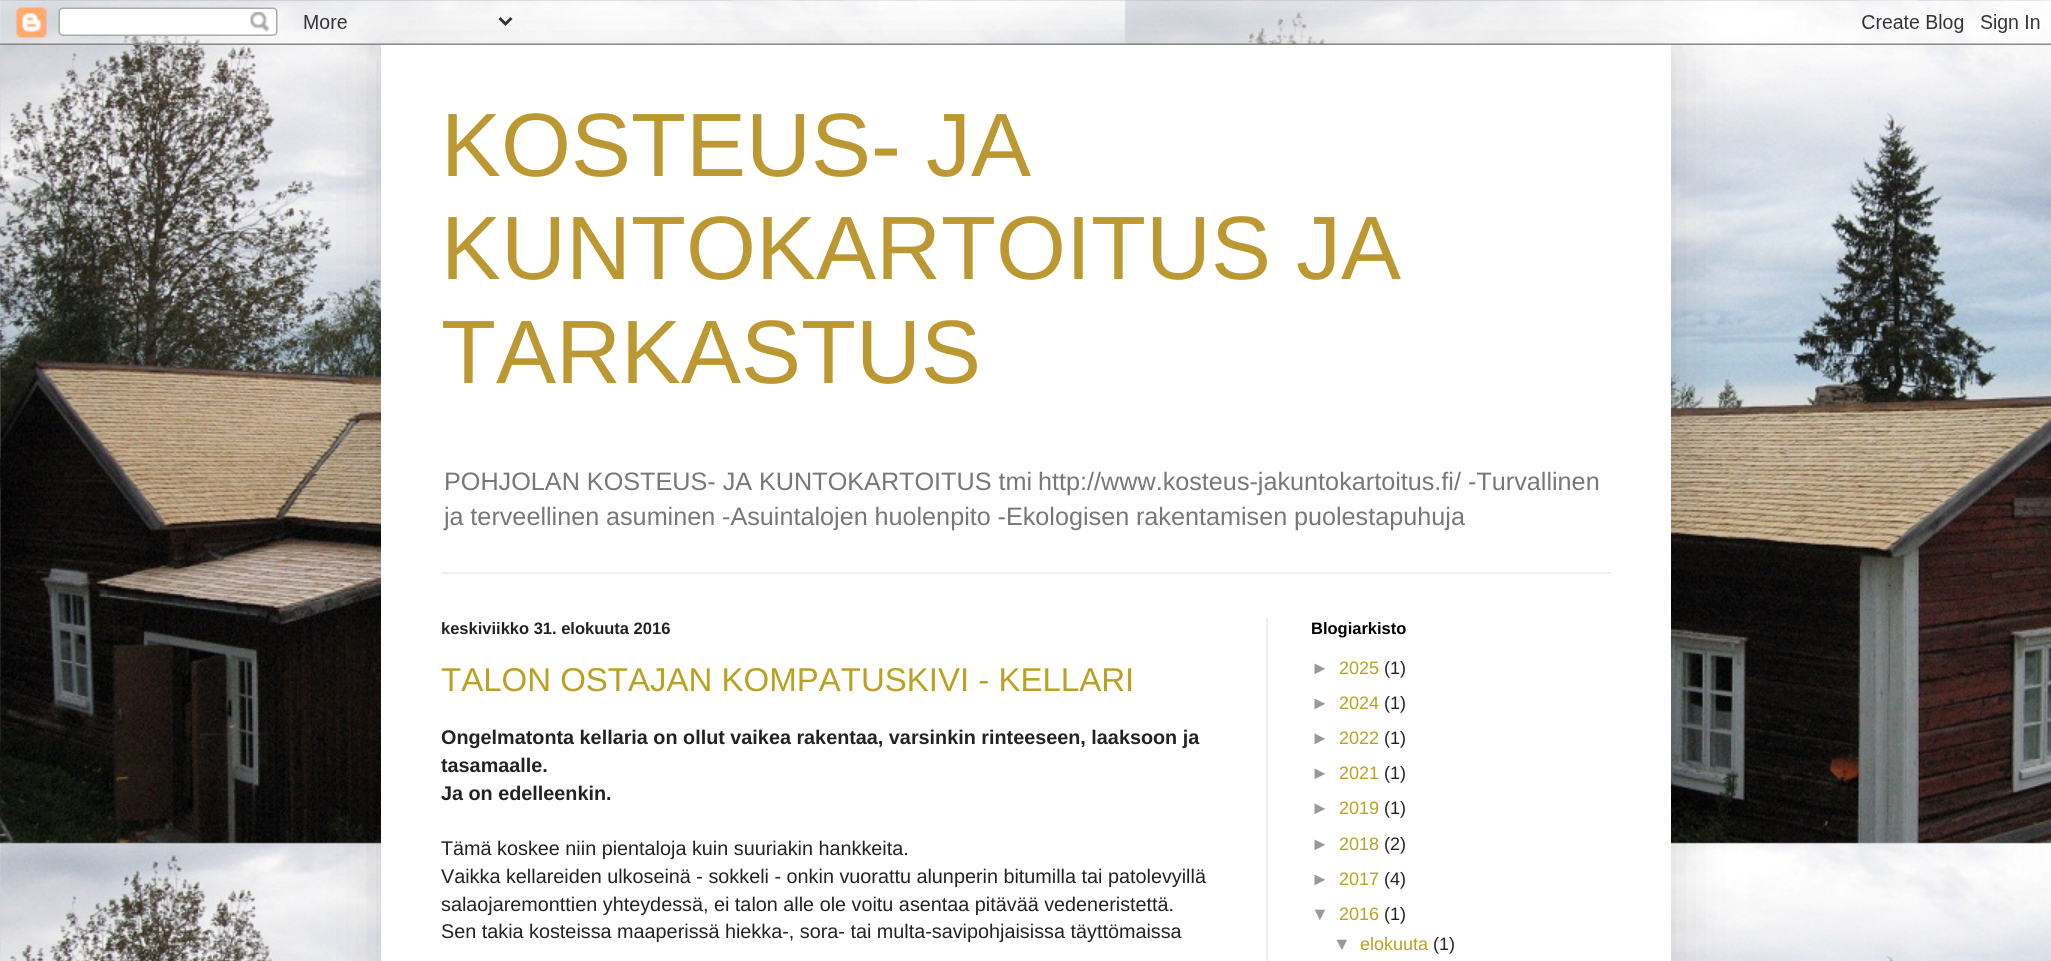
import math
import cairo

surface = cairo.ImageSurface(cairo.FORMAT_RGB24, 2051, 961)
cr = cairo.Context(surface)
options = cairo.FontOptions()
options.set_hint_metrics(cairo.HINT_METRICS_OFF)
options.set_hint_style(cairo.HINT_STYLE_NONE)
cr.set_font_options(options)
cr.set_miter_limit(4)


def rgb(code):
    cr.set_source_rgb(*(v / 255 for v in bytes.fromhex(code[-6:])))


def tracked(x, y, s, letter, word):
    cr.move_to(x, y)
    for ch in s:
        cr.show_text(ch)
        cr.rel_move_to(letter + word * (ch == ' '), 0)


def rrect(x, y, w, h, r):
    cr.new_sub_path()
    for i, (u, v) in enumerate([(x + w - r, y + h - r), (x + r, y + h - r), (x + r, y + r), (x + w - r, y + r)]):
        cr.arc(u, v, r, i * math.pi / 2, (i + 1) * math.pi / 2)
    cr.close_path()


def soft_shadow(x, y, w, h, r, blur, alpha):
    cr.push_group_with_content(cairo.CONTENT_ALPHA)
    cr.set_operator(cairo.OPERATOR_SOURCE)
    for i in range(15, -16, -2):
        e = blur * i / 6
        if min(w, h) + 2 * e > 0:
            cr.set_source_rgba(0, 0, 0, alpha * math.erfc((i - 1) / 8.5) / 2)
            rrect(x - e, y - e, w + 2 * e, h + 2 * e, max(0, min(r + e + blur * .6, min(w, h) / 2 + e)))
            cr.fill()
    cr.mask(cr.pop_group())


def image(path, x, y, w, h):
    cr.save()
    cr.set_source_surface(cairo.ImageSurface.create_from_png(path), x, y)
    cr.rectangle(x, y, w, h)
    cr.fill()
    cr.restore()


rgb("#ffffff")
cr.paint()
image("img/1.png", 0, 0, 2051, 961)
rgb("#000000")
soft_shadow(381, 45, 1290, 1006, 0, 30, 0.15)
image("img/2.png", 0, 0, 2051, 45)
for x, y, w, h, color in [
    (381, 45, 1290, 916, "#ffffff"),
    (441, 572, 1170, 2, "#eeeeee"),
    (1266, 618, 2, 343, "#eeeeee"),
]:
    rgb(color)
    cr.rectangle(x, y, w, h)
    cr.fill()
cr.select_font_face("Liberation Sans")
cr.set_font_size(90)
rgb("#bb9832")
for x, y, s in [
    (441, 176, "KOSTEUS- JA"),
    (441, 279, "KUNTOKARTOITUS JA"),
    (441, 383, "TARKASTUS"),
]:
    cr.move_to(x, y)
    cr.show_text(s)
cr.set_font_size(25.2)
rgb("#777777")
for x, y, s in [
    (444, 490, "POHJOLAN KOSTEUS- JA KUNTOKARTOITUS tmi"),
    (1038, 490, "http://www.kosteus-jakuntokartoitus.fi/"),
    (1468, 490, "-Turvallinen"),
]:
    cr.move_to(x, y)
    cr.show_text(s)
tracked(444, 525, "ja terveellinen asuminen -Asuintalojen huolenpito -Ekologisen rakentamisen puolestapuhuja", 0, -0.25)
cr.select_font_face("Liberation Sans", cairo.FONT_SLANT_NORMAL, cairo.FONT_WEIGHT_BOLD)
cr.set_font_size(16.5)
rgb("#222222")
cr.move_to(441, 634)
cr.show_text("keskiviikko 31. elokuuta 2016")
cr.select_font_face("Liberation Sans")
cr.set_font_size(33)
rgb("#bba021")
cr.move_to(441, 691)
cr.show_text("TALON OSTAJAN KOMPATUSKIVI - KELLARI")
cr.select_font_face("Liberation Sans", cairo.FONT_SLANT_NORMAL, cairo.FONT_WEIGHT_BOLD)
cr.set_font_size(19.8)
rgb("#222222")
for x, y, s in [
    (441, 744, "Ongelmatonta kellaria on ollut vaikea rakentaa, varsinkin rinteeseen, laaksoon ja"),
    (441, 772, "tasamaalle."),
    (441, 800, "Ja on edelleenkin."),
]:
    cr.move_to(x, y)
    cr.show_text(s)
cr.select_font_face("Liberation Sans")
for x, y, s in [
    (441, 855, "Tämä koskee niin pientaloja kuin suuriakin hankkeita."),
    (441, 883, "Vaikka kellareiden ulkoseinä - sokkeli - onkin vuorattu alunperin bitumilla tai patolevyillä"),
    (441, 911, "salaojaremonttien yhteydessä, ei talon alle ole voitu asentaa pitävää vedeneristettä."),
    (441, 938, "Sen takia kosteissa maaperissä hiekka-, sora- tai multa-savipohjaisissa täyttömaissa"),
]:
    cr.move_to(x, y)
    cr.show_text(s)
cr.select_font_face("Liberation Sans", cairo.FONT_SLANT_NORMAL, cairo.FONT_WEIGHT_BOLD)
cr.set_font_size(16.5)
rgb("#000000")
cr.move_to(1311, 634)
cr.show_text("Blogiarkisto")
cr.select_font_face("Liberation Sans")
cr.set_font_size(18)
rgb("#999999")
cr.move_to(1311, 674)
cr.show_text("►")
rgb("#bba021")
cr.move_to(1339, 674)
cr.show_text("2025")
rgb("#222222")
cr.move_to(1384, 674)
cr.show_text("(1)")
rgb("#999999")
cr.move_to(1311, 709)
cr.show_text("►")
rgb("#bba021")
cr.move_to(1339, 709)
cr.show_text("2024")
rgb("#222222")
cr.move_to(1384, 709)
cr.show_text("(1)")
rgb("#999999")
cr.move_to(1311, 744)
cr.show_text("►")
rgb("#bba021")
cr.move_to(1339, 744)
cr.show_text("2022")
rgb("#222222")
cr.move_to(1384, 744)
cr.show_text("(1)")
rgb("#999999")
cr.move_to(1311, 779)
cr.show_text("►")
rgb("#bba021")
cr.move_to(1339, 779)
cr.show_text("2021")
rgb("#222222")
cr.move_to(1384, 779)
cr.show_text("(1)")
rgb("#999999")
cr.move_to(1311, 814)
cr.show_text("►")
rgb("#bba021")
cr.move_to(1339, 814)
cr.show_text("2019")
rgb("#222222")
cr.move_to(1384, 814)
cr.show_text("(1)")
rgb("#999999")
cr.move_to(1311, 850)
cr.show_text("►")
rgb("#bba021")
cr.move_to(1339, 850)
cr.show_text("2018")
rgb("#222222")
cr.move_to(1384, 850)
cr.show_text("(2)")
rgb("#999999")
cr.move_to(1311, 885)
cr.show_text("►")
rgb("#bba021")
cr.move_to(1339, 885)
cr.show_text("2017")
rgb("#222222")
cr.move_to(1384, 885)
cr.show_text("(4)")
rgb("#999999")
cr.move_to(1311, 920)
cr.show_text("▼")
rgb("#bba021")
cr.move_to(1339, 920)
cr.show_text("2016")
rgb("#222222")
cr.move_to(1384, 920)
cr.show_text("(1)")
rgb("#999999")
cr.move_to(1333, 950)
cr.show_text("▼")
rgb("#bba021")
cr.move_to(1360, 950)
cr.show_text("elokuuta")
rgb("#222222")
cr.move_to(1433, 950)
cr.show_text("(1)")
surface.write_to_png("page.png")
